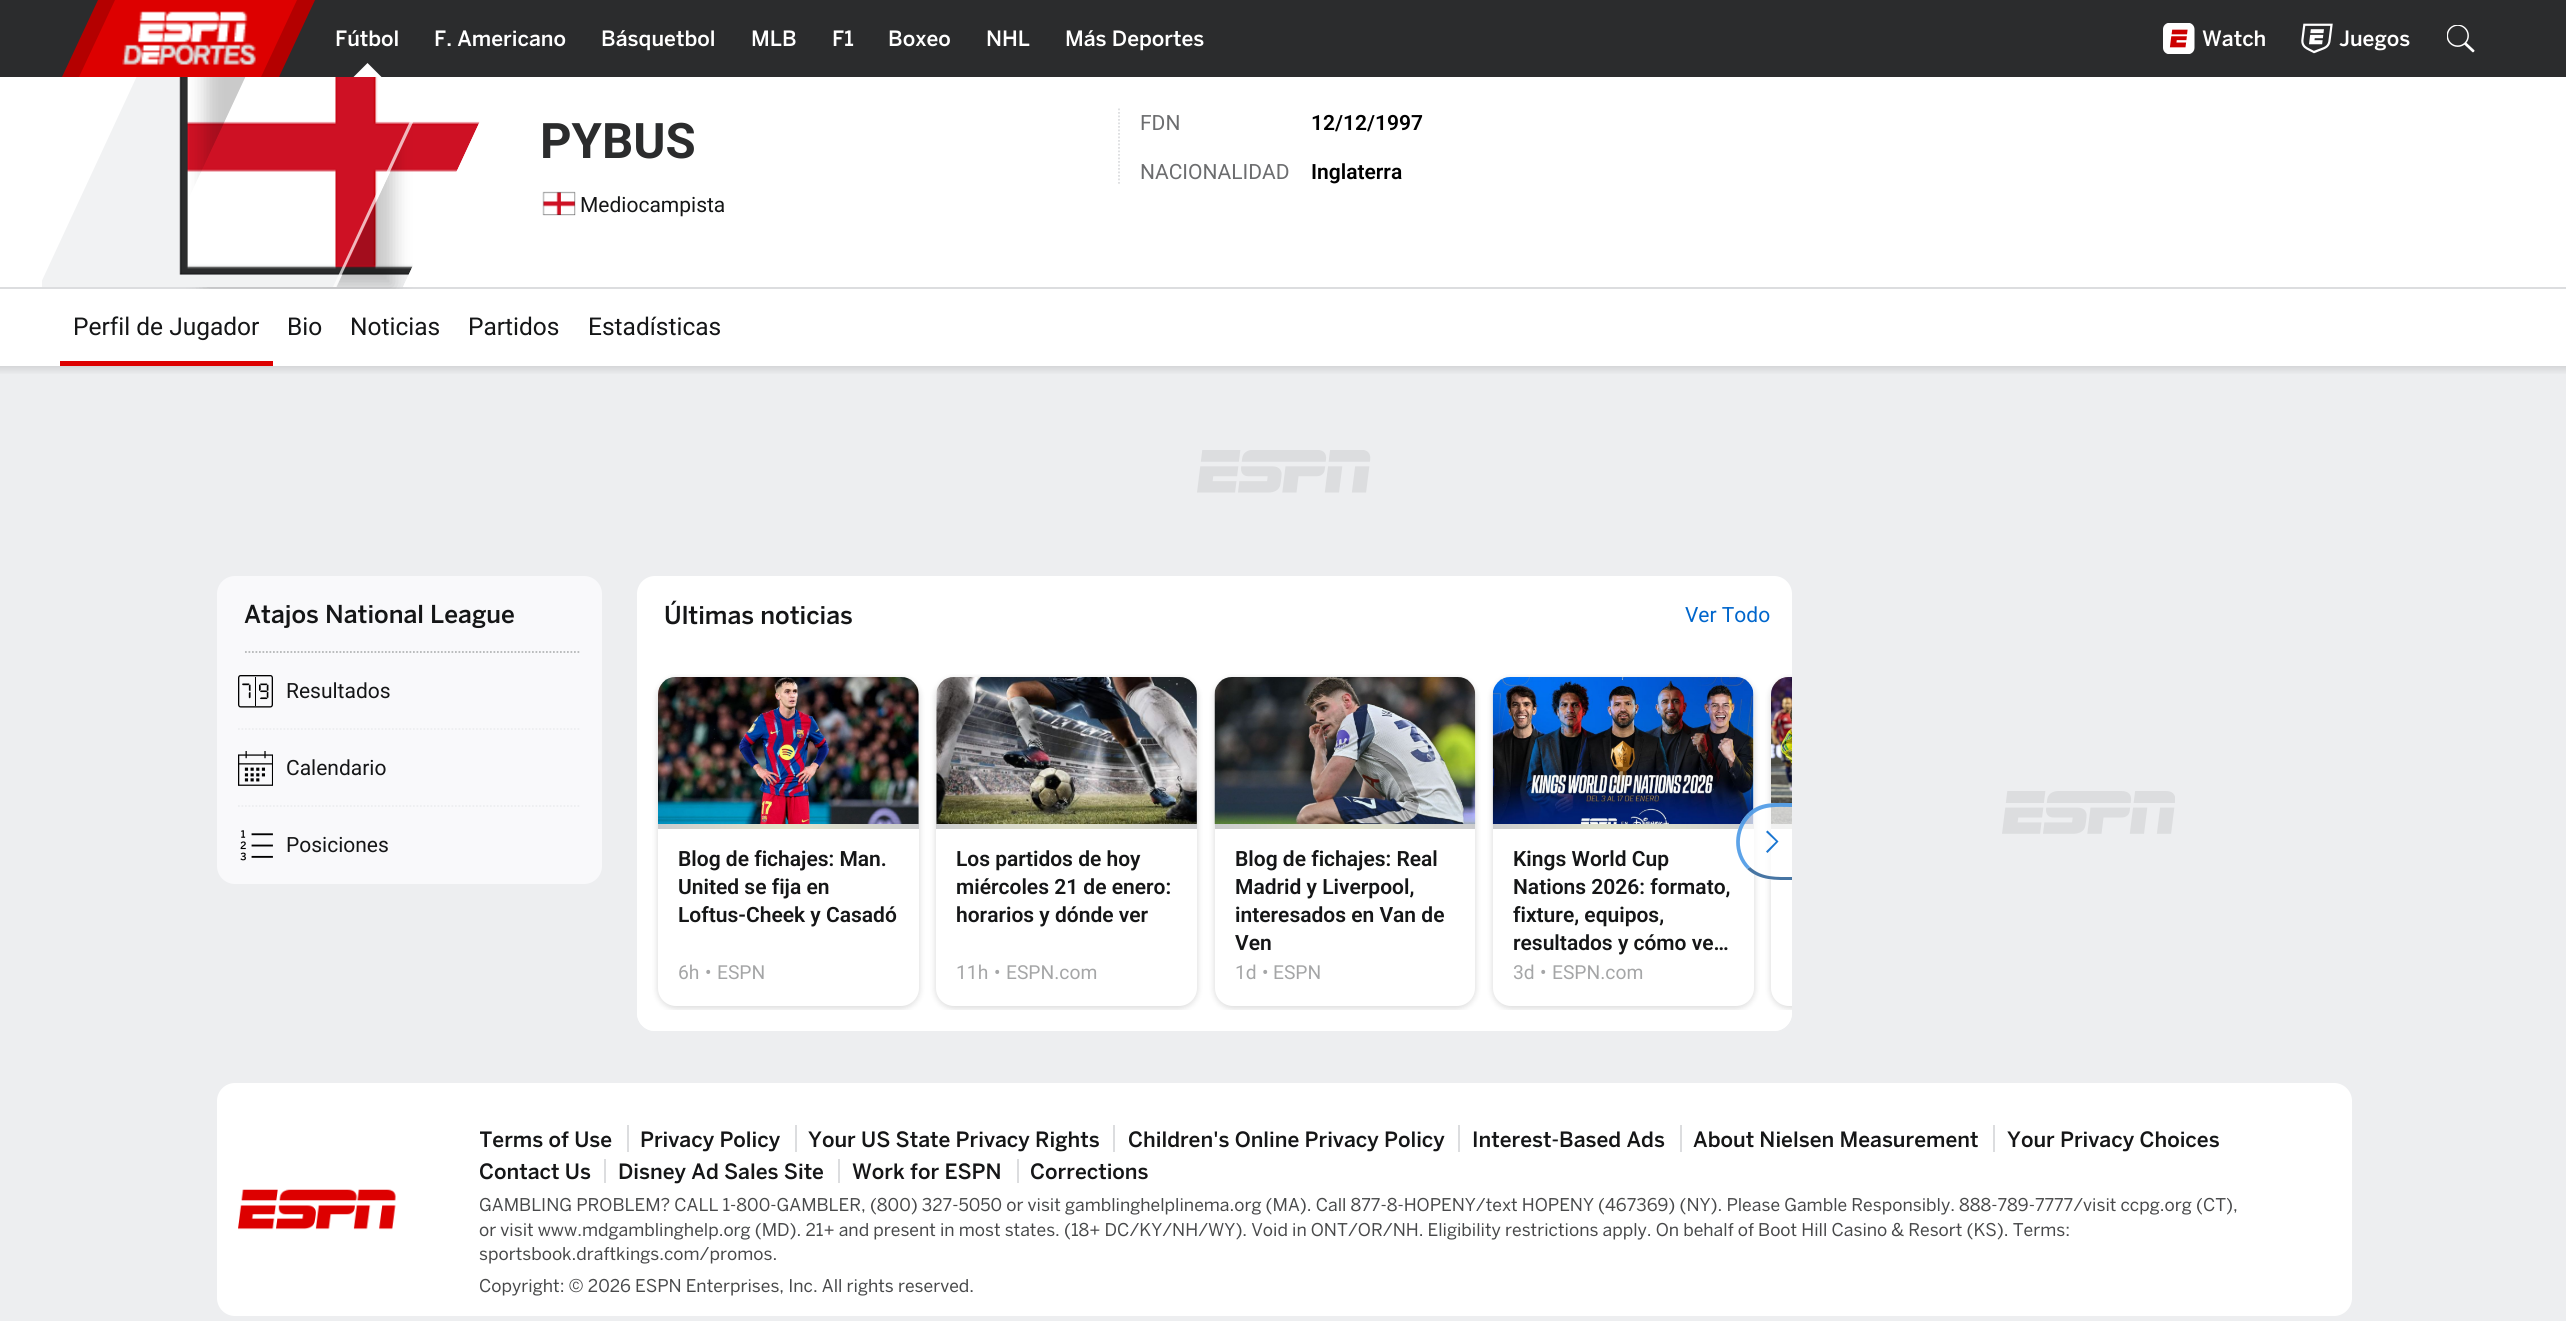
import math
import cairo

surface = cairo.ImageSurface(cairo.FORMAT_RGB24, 2566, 1321)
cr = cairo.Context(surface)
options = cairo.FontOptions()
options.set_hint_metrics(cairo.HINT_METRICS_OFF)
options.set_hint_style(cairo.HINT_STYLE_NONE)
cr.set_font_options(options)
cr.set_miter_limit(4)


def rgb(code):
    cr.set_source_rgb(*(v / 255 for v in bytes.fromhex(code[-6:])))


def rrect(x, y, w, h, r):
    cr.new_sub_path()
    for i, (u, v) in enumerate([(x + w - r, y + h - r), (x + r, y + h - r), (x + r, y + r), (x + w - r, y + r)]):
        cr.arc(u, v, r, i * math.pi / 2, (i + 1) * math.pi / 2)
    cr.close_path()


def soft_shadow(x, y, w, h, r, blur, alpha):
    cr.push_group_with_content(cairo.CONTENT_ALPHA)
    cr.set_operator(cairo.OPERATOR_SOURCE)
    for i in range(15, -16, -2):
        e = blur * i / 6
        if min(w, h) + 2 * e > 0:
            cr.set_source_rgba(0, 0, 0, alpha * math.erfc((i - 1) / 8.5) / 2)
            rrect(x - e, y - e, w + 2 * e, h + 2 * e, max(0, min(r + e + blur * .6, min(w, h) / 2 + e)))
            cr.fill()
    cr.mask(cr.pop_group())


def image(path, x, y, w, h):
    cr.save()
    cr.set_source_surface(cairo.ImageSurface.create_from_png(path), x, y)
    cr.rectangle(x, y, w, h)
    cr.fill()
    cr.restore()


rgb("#edeef0")
cr.paint()
rgb("#ffffff")
cr.rectangle(0, 77, 2566, 210)
cr.fill()
rgb("#f1f2f3")
cr.rectangle(42, 77, 373, 210)
cr.fill()
cr.save()
cr.rectangle(42, 7, 490, 280)
cr.clip()
rgb("#ffffff")
cr.new_path()
cr.move_to(36, 7)
cr.line_to(169, 7)
cr.line_to(39, 287)
cr.line_to(-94, 287)
cr.close_path()
cr.fill()
cr.restore()
rgb("#dcdddf")
cr.rectangle(0, 287, 2566, 2)
cr.fill()
image("img/5.png", 179, 77, 322, 198)
cr.save()
cr.set_fill_rule(cairo.FILL_RULE_EVEN_ODD)
cr.new_path()
cr.move_to(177, 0)
cr.line_to(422, 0)
cr.line_to(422, 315)
cr.line_to(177, 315)
cr.close_path()
cr.move_to(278, 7)
cr.line_to(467, 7)
cr.line_to(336.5, 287)
cr.line_to(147.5, 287)
cr.close_path()
cr.clip()
rgb("#000000")
soft_shadow(205, 7, 189, 280, 0, 9, 0.21)
cr.restore()
cr.set_source_rgba(1, 1, 1, 0.7)
cr.new_path()
cr.move_to(463, 7)
cr.line_to(467, 7)
cr.line_to(336, 287)
cr.line_to(333, 287)
cr.close_path()
cr.fill()
cr.save()
cr.rectangle(42, 7, 490, 280)
cr.clip()
rgb("#ffffff")
cr.new_path()
cr.move_to(533, 7)
cr.line_to(666, 7)
cr.line_to(536, 287)
cr.line_to(403, 287)
cr.close_path()
cr.fill()
cr.set_source_rgba(1, 1, 1, 0.9)
cr.new_path()
cr.move_to(533, 7)
cr.line_to(666, 7)
cr.line_to(536, 287)
cr.line_to(403, 287)
cr.close_path()
cr.fill()
cr.restore()
rgb("#2b2c2d")
cr.rectangle(0, 0, 2566, 77)
cr.fill()
rgb("#b40000")
cr.new_path()
cr.move_to(98, 0)
cr.line_to(315, 0)
cr.line_to(279, 77)
cr.line_to(62, 77)
cr.close_path()
cr.fill()
rgb("#dd0000")
cr.new_path()
cr.move_to(115, 0)
cr.line_to(297, 0)
cr.line_to(261, 77)
cr.line_to(79, 77)
cr.close_path()
cr.fill()
image("img/1.png", 122, 11, 134, 54)
rgb("#ffffff")
cr.new_path()
cr.move_to(381.5, 77)
cr.line_to(353.5, 77)
cr.line_to(367.5, 63)
cr.close_path()
cr.fill()
image("img/2.png", 2163, 23, 32, 31)
image("img/3.png", 2301, 23, 32, 31)
image("img/4.png", 2447, 25, 28, 28)
image("img/6.png", 542, 191, 34, 25)
cr.new_path()
cr.move_to(1119, 108.5)
cr.line_to(1119, 185.5)
rgb("#dcdddf")
cr.set_line_width(1.8)
cr.set_dash([1.75, 1.75])
cr.stroke()
rgb("#ffffff")
cr.rectangle(0, 289, 2566, 77)
cr.fill()
rgb("#dd0000")
cr.rectangle(60, 361, 213, 5)
cr.fill()
gradient = cairo.LinearGradient(1284, 366, 1284, 375)
gradient.add_color_stop_rgba(0, 0.835, 0.839, 0.847, 1)
gradient.add_color_stop_rgba(1, 0.929, 0.933, 0.941, 1)
cr.set_source(gradient)
cr.rectangle(0, 366, 2566, 8)
cr.fill()
image("img/7.png", 1197, 450, 174, 43)
rgb("#f9f9fb")
rrect(217, 576, 385, 308, 18)
cr.fill()
cr.new_path()
cr.move_to(245, 652)
cr.line_to(581, 652)
rgb("#b5b7b7")
cr.stroke()
image("img/8.png", 238, 675, 35, 33)
cr.new_path()
cr.move_to(238, 729)
cr.line_to(581, 729)
rgb("#edeef0")
cr.stroke()
image("img/9.png", 238, 751, 35, 35)
cr.new_path()
cr.move_to(238, 806)
cr.line_to(581, 806)
cr.stroke()
image("img/10.png", 240, 830, 33, 31)
rgb("#ffffff")
rrect(637, 576, 1155, 455, 18)
cr.fill()
rrect(637, 653, 1155, 378, 18)
cr.fill()
cr.save()
cr.rectangle(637, 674, 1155, 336)
cr.clip()
rgb("#000000")
soft_shadow(1493, 679, 261, 329, 18, 3.5, 0.16)
cr.restore()
rrect(1493, 677, 261, 329, 18)
cr.fill()
image("img/14.png", 1492, 677, 262, 147)
gradient = cairo.LinearGradient(1493, 827, 1754, 827)
gradient.add_color_stop_rgba(0, 0.796, 0.8, 0.808, 1)
gradient.add_color_stop_rgba(0.5, 0.89, 0.894, 0.796, 1)
gradient.add_color_stop_rgba(1, 0.796, 0.8, 0.808, 1)
cr.set_source(gradient)
cr.rectangle(1493, 824, 261, 5)
cr.fill()
cr.save()
cr.rectangle(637, 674, 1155, 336)
cr.clip()
rgb("#000000")
soft_shadow(1771, 679, 261, 329, 18, 3.5, 0.16)
cr.restore()
rgb("#ffffff")
cr.new_path()
cr.move_to(1789, 677)
cr.line_to(1792, 677)
cr.line_to(1792, 1006)
cr.line_to(1789, 1006)
cr.curve_to(1779, 1006, 1771, 998, 1771, 988)
cr.line_to(1771, 695)
cr.curve_to(1771, 685, 1779, 677, 1789, 677)
cr.close_path()
cr.fill()
image("img/15.png", 1771, 677, 21, 147)
gradient = cairo.LinearGradient(1771, 827, 2032, 827)
gradient.add_color_stop_rgba(0, 0.796, 0.8, 0.808, 1)
gradient.add_color_stop_rgba(0.5, 0.89, 0.894, 0.796, 1)
gradient.add_color_stop_rgba(1, 0.796, 0.8, 0.808, 1)
cr.set_source(gradient)
cr.rectangle(1771, 824, 21, 5)
cr.fill()
cr.set_source_rgba(1, 1, 1, 0.72)
cr.new_path()
cr.move_to(1774.5, 803)
cr.line_to(1792, 803)
cr.line_to(1792, 880)
cr.line_to(1774.5, 880)
cr.curve_to(1753, 880, 1736, 863, 1736, 841.5)
cr.curve_to(1736, 820, 1753, 803, 1774.5, 803)
cr.close_path()
cr.fill()
cr.set_source_rgba(0.298, 0.6, 0.902, 0.9)
cr.new_path()
cr.move_to(1792, 803)
cr.curve_to(1775, 803, 1760, 801, 1747, 814)
cr.line_to(1750, 817)
cr.curve_to(1761, 805, 1777, 807, 1792, 807)
cr.close_path()
cr.fill()
cr.set_source_rgba(0.2, 0.4, 0.6, 0.9)
cr.new_path()
cr.move_to(1750, 867)
cr.line_to(1747, 869)
cr.curve_to(1760, 881, 1776, 880, 1792, 880)
cr.line_to(1792, 877)
cr.curve_to(1777, 877, 1762, 878, 1750, 867)
cr.close_path()
cr.fill()
cr.set_source_rgba(0.298, 0.6, 0.902, 0.9)
cr.new_path()
cr.move_to(1750, 817)
cr.line_to(1747, 814)
cr.curve_to(1733, 829, 1732, 854, 1747, 869)
cr.line_to(1750, 867)
cr.curve_to(1736, 853, 1737, 830, 1750, 817)
cr.close_path()
cr.fill()
cr.set_source_rgba(0, 0.4, 0.8, 0.9)
cr.new_path()
cr.move_to(1767.5, 830.5)
cr.line_to(1766, 832)
cr.line_to(1776, 841.5)
cr.line_to(1766, 851.5)
cr.line_to(1767.5, 853)
cr.line_to(1778.5, 841.5)
cr.close_path()
cr.fill()
cr.save()
cr.rectangle(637, 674, 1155, 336)
cr.clip()
rgb("#000000")
soft_shadow(658, 679, 261, 329, 18, 3.5, 0.16)
cr.restore()
rgb("#ffffff")
rrect(658, 677, 261, 329, 18)
cr.fill()
image("img/11.png", 658, 677, 261, 147)
gradient = cairo.LinearGradient(658, 827, 919, 827)
gradient.add_color_stop_rgba(0, 0.796, 0.8, 0.808, 1)
gradient.add_color_stop_rgba(0.5, 0.89, 0.894, 0.796, 1)
gradient.add_color_stop_rgba(1, 0.796, 0.8, 0.808, 1)
cr.set_source(gradient)
cr.rectangle(658, 824, 261, 5)
cr.fill()
cr.save()
cr.rectangle(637, 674, 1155, 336)
cr.clip()
rgb("#000000")
soft_shadow(936, 679, 261, 329, 18, 3.5, 0.16)
cr.restore()
rgb("#ffffff")
rrect(936, 677, 261, 329, 18)
cr.fill()
image("img/12.png", 936, 677, 261, 147)
gradient = cairo.LinearGradient(936, 827, 1197, 827)
gradient.add_color_stop_rgba(0, 0.796, 0.8, 0.808, 1)
gradient.add_color_stop_rgba(0.5, 0.89, 0.894, 0.796, 1)
gradient.add_color_stop_rgba(1, 0.796, 0.8, 0.808, 1)
cr.set_source(gradient)
cr.rectangle(936, 824, 261, 5)
cr.fill()
cr.save()
cr.rectangle(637, 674, 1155, 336)
cr.clip()
rgb("#000000")
soft_shadow(1215, 679, 260, 329, 18, 3.5, 0.16)
cr.restore()
rgb("#ffffff")
rrect(1215, 677, 260, 329, 18)
cr.fill()
image("img/13.png", 1214, 677, 262, 147)
gradient = cairo.LinearGradient(1215, 827, 1475, 827)
gradient.add_color_stop_rgba(0, 0.796, 0.8, 0.808, 1)
gradient.add_color_stop_rgba(0.5, 0.89, 0.894, 0.796, 1)
gradient.add_color_stop_rgba(1, 0.796, 0.8, 0.808, 1)
cr.set_source(gradient)
cr.rectangle(1215, 824, 260, 5)
cr.fill()
image("img/16.png", 2002, 791, 173, 43)
rgb("#ffffff")
rrect(217, 1083, 2135, 233, 18)
cr.fill()
image("img/17.png", 238, 1189, 158, 41)
for x, y, w, h, color in [
    (627, 1125, 2, 27, "#dcdddf"),
    (795, 1125, 2, 27, "#dcdddf"),
    (1113, 1125, 2, 27, "#dcdddf"),
    (1458, 1125, 2, 27, "#dcdddf"),
    (1680, 1125, 2, 27, "#dcdddf"),
    (1993, 1125, 2, 27, "#dcdddf"),
    (604, 1159, 2, 24, "#dcdddf"),
    (838, 1159, 2, 24, "#dcdddf"),
    (1017, 1159, 2, 24, "#dcdddf"),
]:
    rgb(color)
    cr.rectangle(x, y, w, h)
    cr.fill()
cr.select_font_face("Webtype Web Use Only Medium")
cr.set_font_size(21)
rgb("#ffffff")
for x, y, s in [
    (335, 46, "Fútbol"),
    (434, 46, "F. Americano"),
    (601, 46, "Básquetbol"),
    (751, 46, "MLB"),
    (832, 46, "F1"),
    (888, 46, "Boxeo"),
    (986, 46, "NHL"),
    (1065, 46, "Más Deportes"),
    (2202, 46, "Watch"),
    (2339, 46, "Juegos"),
]:
    cr.move_to(x, y)
    cr.show_text(s)
cr.select_font_face("Roboto", cairo.FONT_SLANT_NORMAL, cairo.FONT_WEIGHT_BOLD)
cr.set_font_size(49)
rgb("#2b2c2d")
cr.move_to(540, 158)
cr.show_text("PYBUS")
cr.select_font_face("Roboto")
cr.set_font_size(21)
rgb("#151617")
cr.move_to(580, 212)
cr.show_text("Mediocampista")
rgb("#6c6d6f")
cr.move_to(1140, 130)
cr.show_text("FDN")
cr.select_font_face("Roboto SemiBold")
rgb("#000000")
cr.move_to(1311, 130)
cr.show_text("12/12/1997")
cr.select_font_face("Roboto")
rgb("#6c6d6f")
cr.move_to(1140, 179)
cr.show_text("NACIONALIDAD")
cr.select_font_face("Roboto SemiBold")
rgb("#000000")
cr.move_to(1311, 179)
cr.show_text("Inglaterra")
cr.select_font_face("Roboto")
cr.set_font_size(24.5)
rgb("#151617")
for x, y, s in [
    (73, 335, "Perfil de Jugador"),
    (287, 335, "Bio"),
    (350, 335, "Noticias"),
    (468, 335, "Partidos"),
    (588, 335, "Estadísticas"),
]:
    cr.move_to(x, y)
    cr.show_text(s)
cr.select_font_face("Webtype Web Use Only Medium")
cr.move_to(244, 623)
cr.show_text("Atajos National League")
cr.select_font_face("Roboto")
cr.set_font_size(21)
for x, y, s in [
    (286, 698, "Resultados"),
    (286, 775, "Calendario"),
    (286, 852, "Posiciones"),
]:
    cr.move_to(x, y)
    cr.show_text(s)
cr.select_font_face("Webtype Web Use Only Medium")
cr.set_font_size(24.5)
cr.move_to(664, 624)
cr.show_text("Últimas noticias")
cr.select_font_face("Roboto")
cr.set_font_size(21)
rgb("#0066cc")
cr.move_to(1685, 622)
cr.show_text("Ver Todo")
cr.select_font_face("Roboto SemiBold")
rgb("#151617")
for x, y, s in [
    (678, 866, "Blog de fichajes: Man."),
    (678, 894, "United se fija en"),
    (678, 922, "Loftus-Cheek y Casadó"),
]:
    cr.move_to(x, y)
    cr.show_text(s)
cr.select_font_face("Roboto")
cr.set_font_size(19.25)
rgb("#a5a6a7")
for x, y, s in [
    (678, 979, "6h"),
    (705, 979, "•"),
    (717, 979, "ESPN"),
]:
    cr.move_to(x, y)
    cr.show_text(s)
cr.select_font_face("Roboto SemiBold")
cr.set_font_size(21)
rgb("#151617")
for x, y, s in [
    (956, 866, "Los partidos de hoy"),
    (956, 894, "miércoles 21 de enero:"),
    (956, 922, "horarios y dónde ver"),
]:
    cr.move_to(x, y)
    cr.show_text(s)
cr.select_font_face("Roboto")
cr.set_font_size(19.25)
rgb("#a5a6a7")
for x, y, s in [
    (956, 979, "11h"),
    (994, 979, "•"),
    (1006, 979, "ESPN.com"),
]:
    cr.move_to(x, y)
    cr.show_text(s)
cr.select_font_face("Roboto SemiBold")
cr.set_font_size(21)
rgb("#151617")
for x, y, s in [
    (1235, 866, "Blog de fichajes: Real"),
    (1235, 894, "Madrid y Liverpool,"),
    (1235, 922, "interesados en Van de"),
    (1235, 950, "Ven"),
]:
    cr.move_to(x, y)
    cr.show_text(s)
cr.select_font_face("Roboto")
cr.set_font_size(19.25)
rgb("#a5a6a7")
for x, y, s in [
    (1235, 979, "1d"),
    (1262, 979, "•"),
    (1273, 979, "ESPN"),
]:
    cr.move_to(x, y)
    cr.show_text(s)
cr.select_font_face("Roboto SemiBold")
cr.set_font_size(21)
rgb("#151617")
for x, y, s in [
    (1513, 866, "Kings World Cup"),
    (1513, 894, "Nations 2026: formato,"),
    (1513, 922, "fixture, equipos,"),
    (1513, 950, "resultados y cómo ve…"),
]:
    cr.move_to(x, y)
    cr.show_text(s)
cr.select_font_face("Roboto")
cr.set_font_size(19.25)
rgb("#a5a6a7")
for x, y, s in [
    (1513, 979, "3d"),
    (1540, 979, "•"),
    (1552, 979, "ESPN.com"),
]:
    cr.move_to(x, y)
    cr.show_text(s)
cr.save()
cr.rectangle(480, 1122, 1767, 65)
cr.clip()
cr.select_font_face("Webtype Web Use Only Medium")
cr.set_font_size(21)
rgb("#151617")
cr.move_to(479, 1147)
cr.show_text("Terms of Use")
cr.restore()
cr.select_font_face("Webtype Web Use Only Medium")
cr.set_font_size(21)
rgb("#151617")
for x, y, s in [
    (640, 1147, "Privacy Policy"),
    (808, 1147, "Your US State Privacy Rights"),
    (1128, 1147, "Children's Online Privacy Policy"),
    (1472, 1147, "Interest-Based Ads"),
    (1693, 1147, "About Nielsen Measurement"),
    (2007, 1147, "Your Privacy Choices"),
]:
    cr.move_to(x, y)
    cr.show_text(s)
cr.save()
cr.rectangle(480, 1122, 1767, 65)
cr.clip()
cr.move_to(479, 1179)
cr.show_text("Contact Us")
cr.restore()
for x, y, s in [
    (618, 1179, "Disney Ad Sales Site"),
    (852, 1179, "Work for ESPN"),
    (1030, 1179, "Corrections"),
]:
    cr.move_to(x, y)
    cr.show_text(s)
cr.select_font_face("Webtype Web Use Only")
cr.set_font_size(17.5)
rgb("#48494a")
for x, y, s in [
    (479, 1211, "GAMBLING PROBLEM? CALL 1-800-GAMBLER, (800) 327-5050 or visit gamblinghelplinema.org (MA). Call 877-8-HOPENY/text HOPENY (467369) (NY). Please Gamble Responsibly. 888-789-7777/visit ccpg.org (CT),"),
    (479, 1236, "or visit www.mdgamblinghelp.org (MD). 21+ and present in most states. (18+ DC/KY/NH/WY). Void in ONT/OR/NH. Eligibility restrictions apply. On behalf of Boot Hill Casino & Resort (KS). Terms:"),
    (479, 1260, "sportsbook.draftkings.com/promos."),
    (479, 1292, "Copyright: © 2026 ESPN Enterprises, Inc. All rights reserved."),
]:
    cr.move_to(x, y)
    cr.show_text(s)
surface.write_to_png("page.png")
